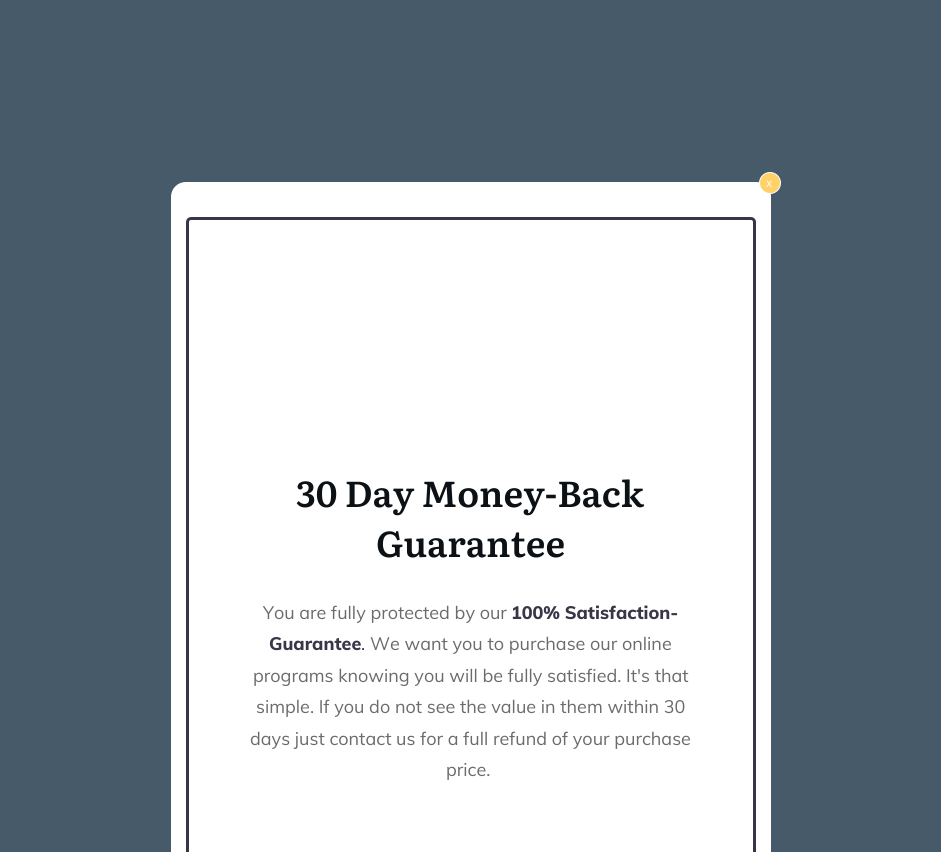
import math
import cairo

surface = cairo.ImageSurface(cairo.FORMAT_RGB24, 941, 852)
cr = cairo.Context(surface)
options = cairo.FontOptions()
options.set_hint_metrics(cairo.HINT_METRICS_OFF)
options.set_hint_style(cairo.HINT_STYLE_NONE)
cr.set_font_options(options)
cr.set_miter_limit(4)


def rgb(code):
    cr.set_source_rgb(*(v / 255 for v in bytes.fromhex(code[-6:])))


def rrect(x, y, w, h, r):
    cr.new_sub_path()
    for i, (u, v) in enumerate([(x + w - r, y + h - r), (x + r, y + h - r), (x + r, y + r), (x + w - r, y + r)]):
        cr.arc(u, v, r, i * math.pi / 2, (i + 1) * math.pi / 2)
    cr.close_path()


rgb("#465a6a")
cr.paint()
rgb("#ffffff")
cr.new_path()
cr.move_to(186, 182)
cr.line_to(756, 182)
cr.curve_to(764.5, 182, 771, 188.5, 771, 197)
cr.line_to(771, 852)
cr.line_to(171, 852)
cr.line_to(171, 197)
cr.curve_to(171, 188.5, 177.5, 182, 186, 182)
cr.close_path()
cr.fill()
rgb("#ffd166")
cr.arc(770, 183, 10.5, 0, 2 * math.pi)
cr.fill_preserve()
rgb("#ffffff")
cr.set_line_width(1)
cr.stroke()
rrect(187.5, 218.5, 567, 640, 3.5)
rgb("#363646")
cr.set_line_width(3)
cr.stroke()
cr.select_font_face("Open Sans")
cr.set_font_size(12)
rgb("#fffcf9")
cr.move_to(766, 187)
cr.show_text("x")
cr.select_font_face("Literata SemiBold")
cr.set_font_size(36)
rgb("#0c1115")
cr.move_to(296, 507)
cr.show_text("30 Day Money-Back")
cr.move_to(376, 557)
cr.show_text("Guarantee")
cr.select_font_face("Muli")
cr.set_font_size(18)
rgb("#6a6b6c")
cr.move_to(263, 619)
cr.show_text("You are fully protected by our")
cr.select_font_face("Muli ExtraBold")
rgb("#373748")
cr.move_to(511, 619)
cr.show_text("100% Satisfaction-")
cr.move_to(269, 650)
cr.show_text("Guarantee")
cr.select_font_face("Muli")
cr.move_to(361, 650)
cr.show_text(".")
rgb("#6a6b6c")
for x, y, s in [
    (370, 650, "We want you to purchase our online"),
    (253, 682, "programs knowing you will be fully satisfied. It's that"),
    (256, 713, "simple. If you do not see the value in them within 30"),
    (250, 745, "days just contact us for a full refund of your purchase"),
    (446, 776, "price."),
]:
    cr.move_to(x, y)
    cr.show_text(s)
surface.write_to_png("page.png")
